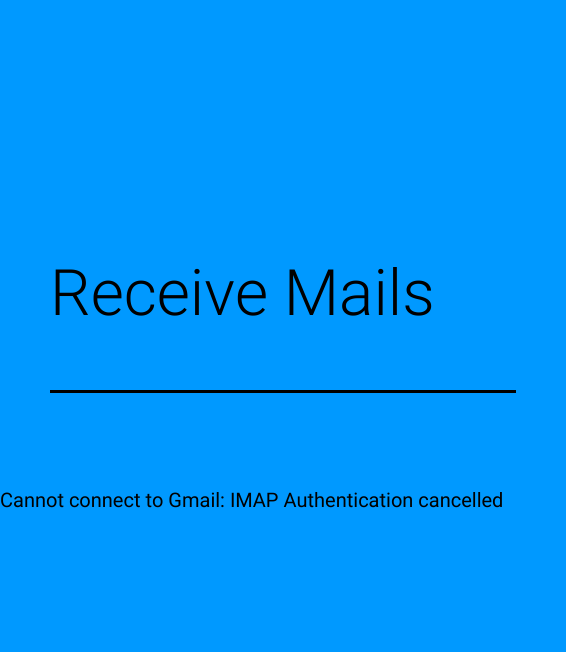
import math
import cairo

surface = cairo.ImageSurface(cairo.FORMAT_RGB24, 566, 652)
cr = cairo.Context(surface)
options = cairo.FontOptions()
options.set_hint_metrics(cairo.HINT_METRICS_OFF)
options.set_hint_style(cairo.HINT_STYLE_NONE)
cr.set_font_options(options)
cr.set_miter_limit(4)


def rgb(code):
    cr.set_source_rgb(*(v / 255 for v in bytes.fromhex(code[-6:])))


rgb("#0099ff")
cr.paint()
rgb("#000000")
cr.rectangle(50, 390, 466, 3)
cr.fill()
cr.select_font_face("Roboto Light")
cr.set_font_size(64)
cr.move_to(50, 315)
cr.show_text("Receive Mails")
cr.select_font_face("Roboto")
cr.set_font_size(20)
cr.move_to(0, 507)
cr.show_text("Cannot connect to Gmail: IMAP Authentication cancelled")
surface.write_to_png("page.png")
